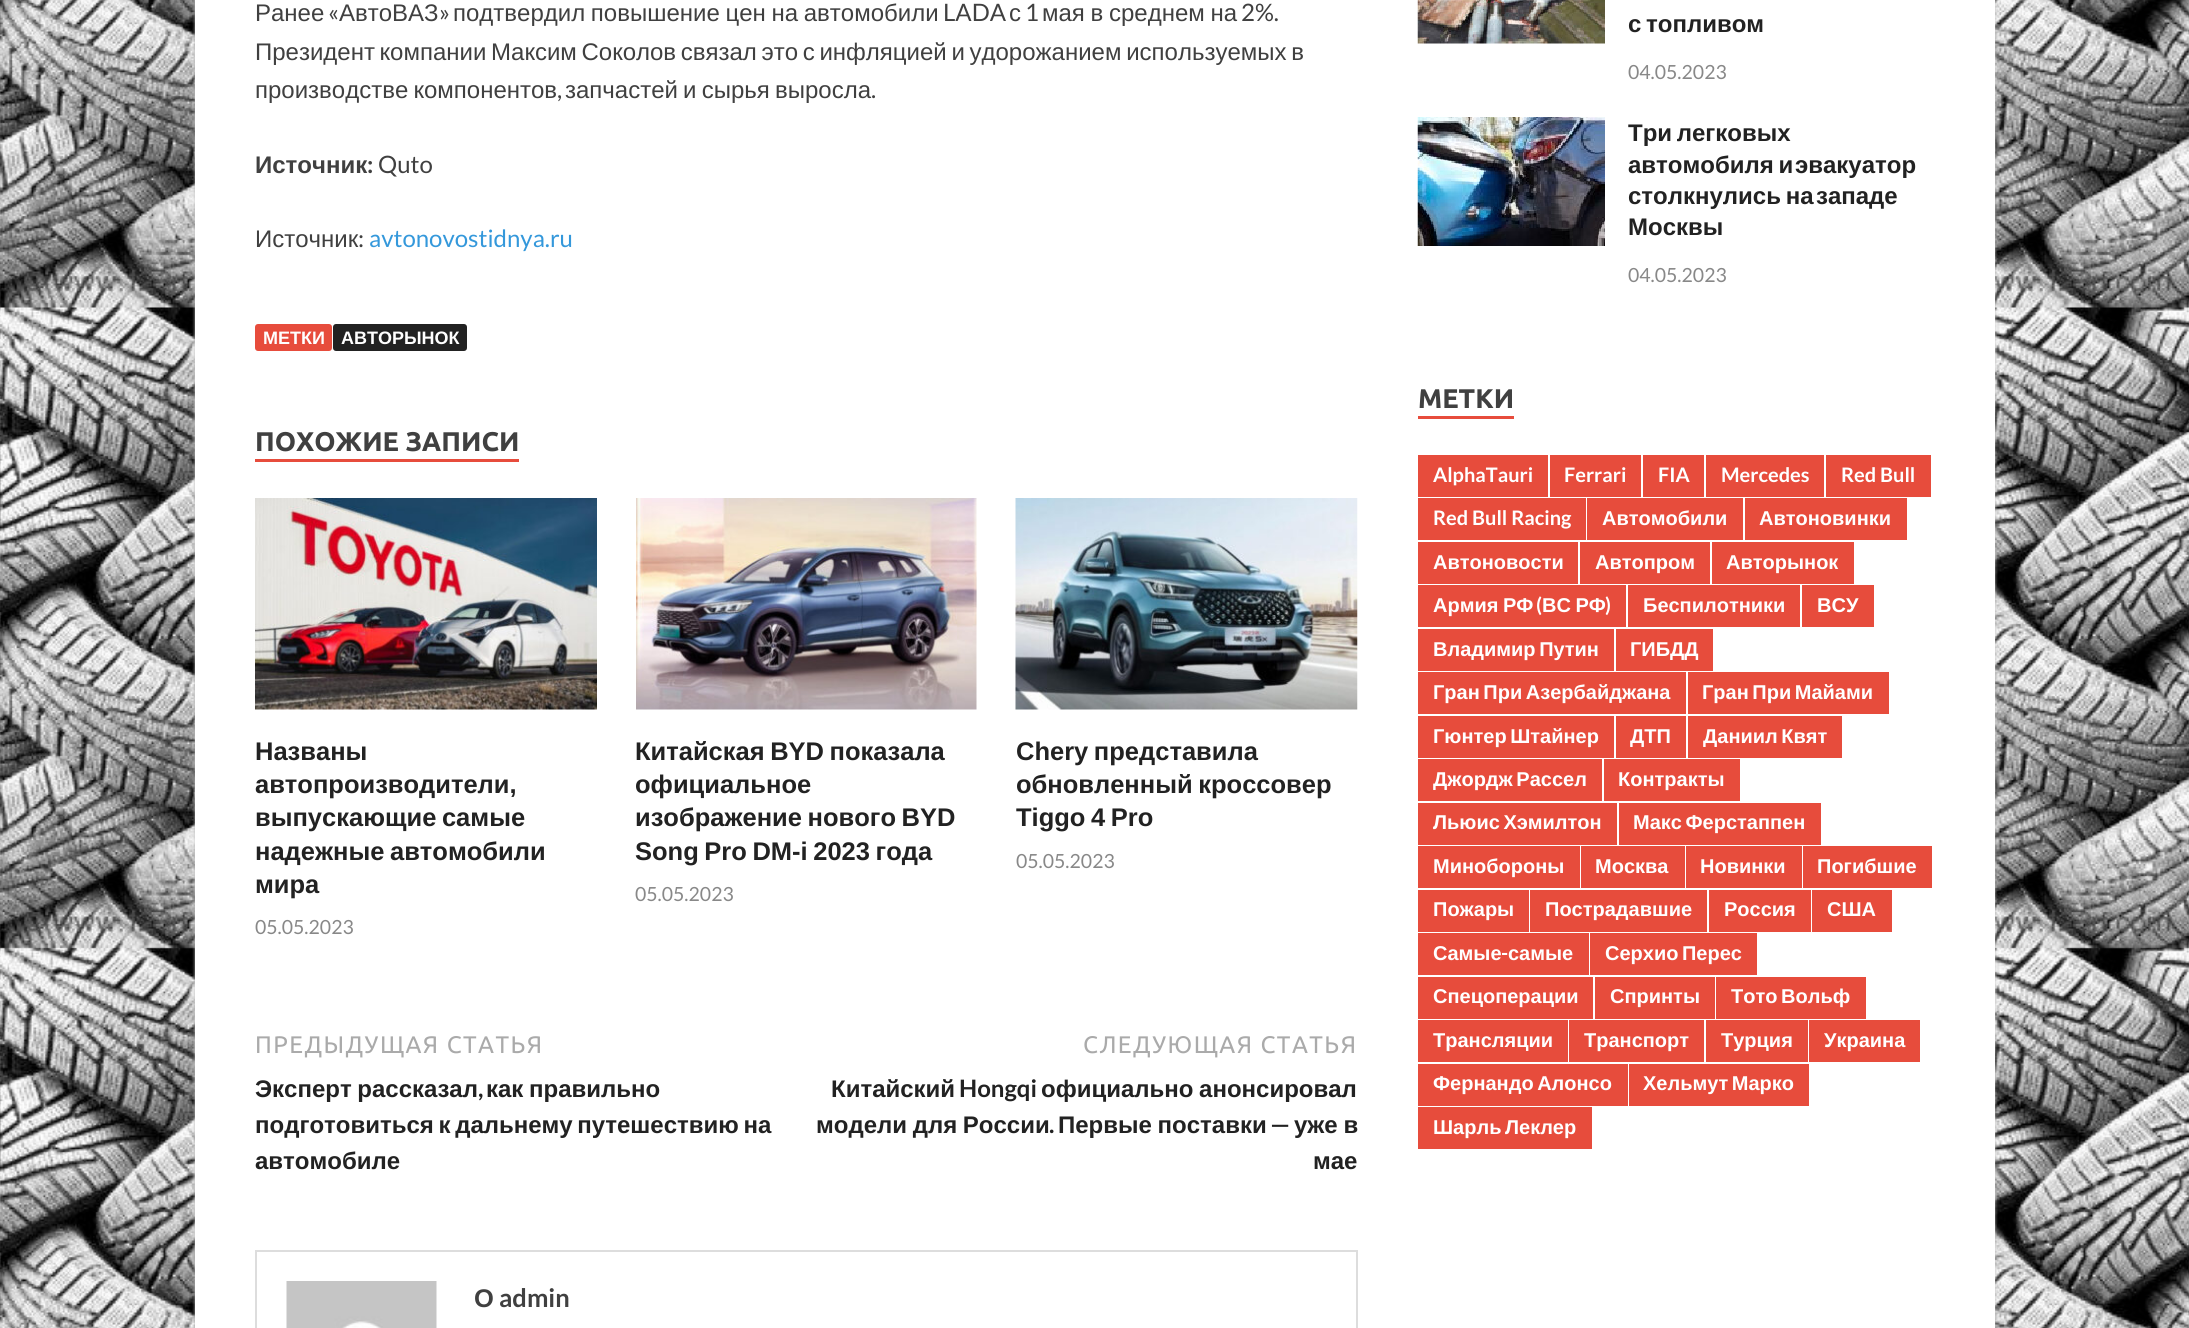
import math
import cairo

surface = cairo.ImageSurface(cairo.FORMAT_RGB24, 2189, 1328)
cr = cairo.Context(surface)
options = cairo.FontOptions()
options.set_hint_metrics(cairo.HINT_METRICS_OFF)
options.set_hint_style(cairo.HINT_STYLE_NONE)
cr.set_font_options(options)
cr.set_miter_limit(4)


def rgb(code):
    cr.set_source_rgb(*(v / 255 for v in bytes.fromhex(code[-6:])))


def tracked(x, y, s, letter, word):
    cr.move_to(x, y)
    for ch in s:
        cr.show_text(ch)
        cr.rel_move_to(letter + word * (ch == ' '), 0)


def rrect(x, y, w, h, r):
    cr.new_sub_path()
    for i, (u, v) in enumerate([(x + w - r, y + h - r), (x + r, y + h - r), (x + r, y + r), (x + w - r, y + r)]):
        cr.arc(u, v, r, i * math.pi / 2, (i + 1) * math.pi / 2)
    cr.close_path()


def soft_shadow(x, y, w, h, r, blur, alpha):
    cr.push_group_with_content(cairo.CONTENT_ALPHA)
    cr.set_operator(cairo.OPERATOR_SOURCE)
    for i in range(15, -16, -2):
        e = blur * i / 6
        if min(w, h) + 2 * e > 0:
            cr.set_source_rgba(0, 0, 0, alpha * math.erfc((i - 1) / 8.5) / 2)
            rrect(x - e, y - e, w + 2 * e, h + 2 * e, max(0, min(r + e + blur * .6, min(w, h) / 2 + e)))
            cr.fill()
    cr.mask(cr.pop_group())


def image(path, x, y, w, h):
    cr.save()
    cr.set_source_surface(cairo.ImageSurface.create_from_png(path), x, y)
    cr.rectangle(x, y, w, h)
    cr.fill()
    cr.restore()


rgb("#ffffff")
cr.paint()
image("img/1.png", 0, 0, 2189, 1328)
rgb("#bbbbbb")
soft_shadow(195, -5, 1800, 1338, 0, 1.5, 1)
rgb("#ffffff")
cr.rectangle(195, 0, 1800, 1328)
cr.fill()
rgb("#e74c3c")
rrect(255, 324, 77, 27, 3)
cr.fill()
rgb("#222222")
rrect(333, 324, 134, 27, 3)
cr.fill()
rgb("#e74c3c")
cr.rectangle(255, 459, 264, 3)
cr.fill()
image("img/2.png", 255, 498, 342, 212)
image("img/3.png", 636, 498, 341, 212)
image("img/4.png", 1015, 498, 343, 212)
cr.rectangle(256, 1251, 1101, 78)
rgb("#dddddd")
cr.stroke()
image("img/5.png", 286, 1281, 151, 47)
image("img/6.png", 1417, 0, 188, 44)
image("img/7.png", 1417, 117, 188, 129)
for x, y, w, h, color in [
    (1418, 416, 96, 3, "#e74c3c"),
    (1418, 455, 130, 42, "#e74c3c"),
    (1550, 455, 91, 42, "#e74c3c"),
    (1643, 455, 61, 42, "#e74c3c"),
    (1706, 455, 118, 42, "#e74c3c"),
    (1826, 455, 105, 42, "#e74c3c"),
    (1418, 498, 168, 42, "#e74c3c"),
    (1587, 498, 156, 42, "#e74c3c"),
    (1745, 498, 162, 42, "#e74c3c"),
    (1418, 542, 160, 42, "#e74c3c"),
    (1580, 542, 130, 42, "#e74c3c"),
    (1712, 542, 142, 42, "#e74c3c"),
    (1418, 585, 208, 42, "#e74c3c"),
    (1628, 585, 172, 42, "#e74c3c"),
    (1802, 585, 72, 42, "#e74c3c"),
    (1418, 629, 196, 42, "#e74c3c"),
    (1616, 629, 97, 42, "#e74c3c"),
    (1418, 672, 268, 42, "#e74c3c"),
    (1688, 672, 201, 42, "#e74c3c"),
    (1418, 716, 196, 42, "#e74c3c"),
    (1616, 716, 70, 42, "#e74c3c"),
    (1688, 716, 154, 42, "#e74c3c"),
    (1418, 759, 184, 42, "#e74c3c"),
    (1604, 759, 136, 42, "#e74c3c"),
    (1418, 803, 199, 42, "#e74c3c"),
    (1619, 803, 202, 42, "#e74c3c"),
    (1418, 846, 162, 42, "#e74c3c"),
    (1581, 846, 104, 42, "#e74c3c"),
    (1686, 846, 116, 42, "#e74c3c"),
    (1803, 846, 129, 42, "#e74c3c"),
    (1418, 890, 111, 42, "#e74c3c"),
    (1530, 890, 177, 42, "#e74c3c"),
    (1709, 890, 102, 42, "#e74c3c"),
    (1812, 890, 80, 42, "#e74c3c"),
    (1418, 933, 171, 42, "#e74c3c"),
    (1590, 933, 167, 42, "#e74c3c"),
    (1418, 977, 175, 42, "#e74c3c"),
    (1595, 977, 120, 42, "#e74c3c"),
    (1716, 977, 150, 42, "#e74c3c"),
    (1418, 1020, 150, 42, "#e74c3c"),
    (1569, 1020, 135, 42, "#e74c3c"),
    (1706, 1020, 102, 42, "#e74c3c"),
    (1809, 1020, 111, 42, "#e74c3c"),
    (1418, 1064, 210, 42, "#e74c3c"),
    (1629, 1064, 180, 42, "#e74c3c"),
    (1418, 1107, 174, 42, "#e74c3c"),
]:
    rgb(color)
    cr.rectangle(x, y, w, h)
    cr.fill()
cr.select_font_face("Liberation Sans")
cr.set_font_size(24)
rgb("#404040")
cr.move_to(255, 21)
cr.show_text("Ранее")
cr.select_font_face("Lato")
cr.move_to(328, 21)
cr.show_text("«")
cr.select_font_face("Liberation Sans")
cr.move_to(339, 21)
cr.show_text("АвтоВАЗ")
cr.select_font_face("Lato")
cr.move_to(439, 21)
cr.show_text("»")
cr.select_font_face("Liberation Sans")
tracked(453, 21, "подтвердил повышение цен на автомобили", 0, -1)
cr.select_font_face("Lato")
cr.move_to(943, 21)
cr.show_text("LADA")
cr.select_font_face("Liberation Sans")
cr.move_to(1009, 21)
cr.show_text("с")
cr.select_font_face("Lato")
cr.move_to(1025, 21)
cr.show_text("1")
cr.select_font_face("Liberation Sans")
tracked(1042, 21, "мая в среднем на", 0, -1)
cr.select_font_face("Lato")
cr.move_to(1241, 21)
cr.show_text("2%.")
cr.select_font_face("Liberation Sans")
tracked(255, 60, "Президент компании Максим Соколов связал это с инфляцией и удорожанием используемых в", 0, -2)
tracked(255, 98, "производстве компонентов", 0, -1.5)
cr.select_font_face("Lato")
cr.move_to(557, 98)
cr.show_text(",")
cr.select_font_face("Liberation Sans")
tracked(565, 98, "запчастей и сырья выросла", 0, -1.5)
cr.select_font_face("Lato")
cr.move_to(871, 98)
cr.show_text(".")
cr.select_font_face("Liberation Sans", cairo.FONT_SLANT_NORMAL, cairo.FONT_WEIGHT_BOLD)
cr.move_to(255, 173)
cr.show_text("Источник")
cr.select_font_face("Lato", cairo.FONT_SLANT_NORMAL, cairo.FONT_WEIGHT_BOLD)
cr.move_to(367, 173)
cr.show_text(":")
cr.select_font_face("Lato")
cr.move_to(378, 173)
cr.show_text("Quto")
cr.select_font_face("Liberation Sans")
cr.move_to(255, 247)
cr.show_text("Источник")
cr.select_font_face("Lato")
cr.move_to(358, 247)
cr.show_text(":")
rgb("#3498db")
cr.move_to(369, 247)
cr.show_text("avtonovostidnya.ru")
cr.select_font_face("Liberation Sans", cairo.FONT_SLANT_NORMAL, cairo.FONT_WEIGHT_BOLD)
cr.set_font_size(18)
rgb("#ffffff")
cr.move_to(263, 344)
cr.show_text("МЕТКИ")
cr.move_to(341, 344)
cr.show_text("АВТОРЫНОК")
cr.select_font_face("Ubuntu", cairo.FONT_SLANT_NORMAL, cairo.FONT_WEIGHT_BOLD)
cr.set_font_size(27)
rgb("#404040")
cr.move_to(255, 451)
cr.show_text("ПОХОЖИЕ ЗАПИСИ")
cr.select_font_face("Liberation Sans", cairo.FONT_SLANT_NORMAL, cairo.FONT_WEIGHT_BOLD)
cr.set_font_size(25.5)
rgb("#222222")
cr.move_to(255, 760)
cr.show_text("Названы")
cr.move_to(255, 793)
cr.show_text("автопроизводители,")
tracked(255, 826, "выпускающие самые", 0, -1.5)
tracked(255, 860, "надежные автомобили", 0, -1.5)
cr.move_to(255, 893)
cr.show_text("мира")
cr.select_font_face("Lato")
cr.set_font_size(19.5)
rgb("#888888")
cr.move_to(255, 934)
cr.show_text("05.05.2023")
cr.select_font_face("Liberation Sans", cairo.FONT_SLANT_NORMAL, cairo.FONT_WEIGHT_BOLD)
cr.set_font_size(25.5)
rgb("#222222")
tracked(635, 760, "Китайская BYD показала", 0, -1.5)
cr.move_to(635, 793)
cr.show_text("официальное")
tracked(635, 826, "изображение нового BYD", 0, -1.5)
tracked(635, 860, "Song Pro DM-i 2023 года", 0, -1.5)
cr.select_font_face("Lato")
cr.set_font_size(19.5)
rgb("#888888")
cr.move_to(635, 901)
cr.show_text("05.05.2023")
cr.select_font_face("Liberation Sans", cairo.FONT_SLANT_NORMAL, cairo.FONT_WEIGHT_BOLD)
cr.set_font_size(25.5)
rgb("#222222")
for x, y, s in [
    (1016, 760, "Chery представила"),
    (1016, 793, "обновленный кроссовер"),
    (1016, 826, "Tiggo 4 Pro"),
]:
    tracked(x, y, s, 0, -1.5)
cr.select_font_face("Lato")
cr.set_font_size(19.5)
rgb("#888888")
cr.move_to(1016, 868)
cr.show_text("05.05.2023")
cr.select_font_face("Ubuntu")
cr.set_font_size(24)
rgb("#aaaaaa")
tracked(255, 1053, "ПРЕДЫДУЩАЯ СТАТЬЯ", 1.5, 0)
cr.select_font_face("Liberation Sans", cairo.FONT_SLANT_NORMAL, cairo.FONT_WEIGHT_BOLD)
rgb("#222222")
tracked(255, 1097, "Эксперт рассказал", 0, -1)
cr.select_font_face("Lato", cairo.FONT_SLANT_NORMAL, cairo.FONT_WEIGHT_BOLD)
cr.move_to(478, 1097)
cr.show_text(",")
cr.select_font_face("Liberation Sans", cairo.FONT_SLANT_NORMAL, cairo.FONT_WEIGHT_BOLD)
tracked(486, 1097, "как правильно", 0, -1)
tracked(255, 1133, "подготовиться к дальнему путешествию на", 0, -2)
cr.move_to(255, 1169)
cr.show_text("автомобиле")
cr.select_font_face("Ubuntu")
rgb("#aaaaaa")
tracked(1083, 1053, "СЛЕДУЮЩАЯ СТАТЬЯ", 1.5, 0)
cr.select_font_face("Liberation Sans", cairo.FONT_SLANT_NORMAL, cairo.FONT_WEIGHT_BOLD)
rgb("#222222")
cr.move_to(831, 1097)
cr.show_text("Китайский")
cr.select_font_face("Lato", cairo.FONT_SLANT_NORMAL, cairo.FONT_WEIGHT_BOLD)
cr.move_to(959, 1097)
cr.show_text("Hongqi")
cr.select_font_face("Liberation Sans", cairo.FONT_SLANT_NORMAL, cairo.FONT_WEIGHT_BOLD)
for x, y, s in [
    (1041, 1097, "официально анонсировал"),
    (816, 1133, "модели для России"),
    (1058, 1133, "Первые поставки"),
]:
    tracked(x, y, s, 0, -1)
cr.select_font_face("Lato", cairo.FONT_SLANT_NORMAL, cairo.FONT_WEIGHT_BOLD)
cr.move_to(1270, 1133)
cr.show_text("—")
cr.select_font_face("Liberation Sans", cairo.FONT_SLANT_NORMAL, cairo.FONT_WEIGHT_BOLD)
tracked(1294, 1133, "уже в", 0, -1)
cr.select_font_face("Lato", cairo.FONT_SLANT_NORMAL, cairo.FONT_WEIGHT_BOLD)
cr.move_to(1049, 1133)
cr.show_text(".")
cr.select_font_face("Liberation Sans", cairo.FONT_SLANT_NORMAL, cairo.FONT_WEIGHT_BOLD)
cr.move_to(1313, 1169)
cr.show_text("мае")
cr.set_font_size(25.5)
rgb("#404040")
cr.move_to(474, 1307)
cr.show_text("О")
cr.select_font_face("Lato", cairo.FONT_SLANT_NORMAL, cairo.FONT_WEIGHT_BOLD)
cr.move_to(499, 1307)
cr.show_text("admin")
cr.select_font_face("Liberation Sans", cairo.FONT_SLANT_NORMAL, cairo.FONT_WEIGHT_BOLD)
cr.set_font_size(24)
rgb("#222222")
cr.move_to(1628, 32)
cr.show_text("с")
cr.move_to(1646, 32)
cr.show_text("топливом")
cr.select_font_face("Lato")
cr.set_font_size(19.5)
rgb("#888888")
cr.move_to(1628, 79)
cr.show_text("04.05.2023")
cr.save()
cr.rectangle(1628, 117, 307, 174)
cr.clip()
cr.select_font_face("Liberation Sans", cairo.FONT_SLANT_NORMAL, cairo.FONT_WEIGHT_BOLD)
cr.set_font_size(24)
rgb("#222222")
tracked(1628, 141, "Три легковых", 0, -2)
cr.restore()
cr.select_font_face("Liberation Sans", cairo.FONT_SLANT_NORMAL, cairo.FONT_WEIGHT_BOLD)
cr.set_font_size(24)
rgb("#222222")
tracked(1628, 173, "автомобиля и", 0, -2)
cr.move_to(1795, 173)
cr.show_text("эвакуатор")
tracked(1628, 204, "столкнулись на", 0, -2)
cr.move_to(1816, 204)
cr.show_text("западе")
cr.move_to(1628, 235)
cr.show_text("Москвы")
cr.select_font_face("Lato")
cr.set_font_size(19.5)
rgb("#888888")
cr.move_to(1628, 282)
cr.show_text("04.05.2023")
cr.select_font_face("Ubuntu", cairo.FONT_SLANT_NORMAL, cairo.FONT_WEIGHT_BOLD)
cr.set_font_size(27)
rgb("#404040")
cr.move_to(1418, 408)
cr.show_text("МЕТКИ")
cr.select_font_face("Lato", cairo.FONT_SLANT_NORMAL, cairo.FONT_WEIGHT_BOLD)
cr.set_font_size(20)
rgb("#ffffff")
for x, y, s in [
    (1433, 482, "AlphaTauri"),
    (1564, 482, "Ferrari"),
    (1658, 482, "FIA"),
    (1721, 482, "Mercedes"),
    (1841, 482, "Red Bull"),
    (1433, 525, "Red Bull Racing"),
]:
    cr.move_to(x, y)
    cr.show_text(s)
cr.select_font_face("Liberation Sans", cairo.FONT_SLANT_NORMAL, cairo.FONT_WEIGHT_BOLD)
for x, y, s in [
    (1602, 525, "Автомобили"),
    (1759, 525, "Автоновинки"),
    (1433, 569, "Автоновости"),
    (1595, 569, "Автопром"),
    (1726, 569, "Авторынок"),
]:
    cr.move_to(x, y)
    cr.show_text(s)
tracked(1433, 612, "Армия РФ", 0, -1)
cr.select_font_face("Lato", cairo.FONT_SLANT_NORMAL, cairo.FONT_WEIGHT_BOLD)
cr.move_to(1536, 612)
cr.show_text("(")
cr.select_font_face("Liberation Sans", cairo.FONT_SLANT_NORMAL, cairo.FONT_WEIGHT_BOLD)
tracked(1542, 612, "ВС РФ", 0, -1)
cr.select_font_face("Lato", cairo.FONT_SLANT_NORMAL, cairo.FONT_WEIGHT_BOLD)
cr.move_to(1605, 612)
cr.show_text(")")
cr.select_font_face("Liberation Sans", cairo.FONT_SLANT_NORMAL, cairo.FONT_WEIGHT_BOLD)
cr.move_to(1643, 612)
cr.show_text("Беспилотники")
cr.move_to(1817, 612)
cr.show_text("ВСУ")
tracked(1433, 656, "Владимир Путин", 0, -2)
cr.move_to(1630, 656)
cr.show_text("ГИБДД")
for x, y, s in [
    (1433, 699, "Гран При Азербайджана"),
    (1702, 699, "Гран При Майами"),
    (1433, 743, "Гюнтер Штайнер"),
]:
    tracked(x, y, s, 0, -2)
cr.move_to(1630, 743)
cr.show_text("ДТП")
tracked(1703, 743, "Даниил Квят", 0, -2)
tracked(1433, 786, "Джордж Рассел", 0, -2)
cr.move_to(1618, 786)
cr.show_text("Контракты")
tracked(1433, 829, "Льюис Хэмилтон", 0, -2)
tracked(1633, 829, "Макс Ферстаппен", 0, -2)
for x, y, s in [
    (1433, 873, "Минобороны"),
    (1595, 873, "Москва"),
    (1700, 873, "Новинки"),
    (1817, 873, "Погибшие"),
    (1433, 916, "Пожары"),
    (1545, 916, "Пострадавшие"),
    (1724, 916, "Россия"),
    (1827, 916, "США"),
    (1433, 960, "Самые"),
]:
    cr.move_to(x, y)
    cr.show_text(s)
cr.select_font_face("Lato", cairo.FONT_SLANT_NORMAL, cairo.FONT_WEIGHT_BOLD)
cr.move_to(1501, 960)
cr.show_text("-")
cr.select_font_face("Liberation Sans", cairo.FONT_SLANT_NORMAL, cairo.FONT_WEIGHT_BOLD)
cr.move_to(1508, 960)
cr.show_text("самые")
tracked(1605, 960, "Серхио Перес", 0, -2)
cr.move_to(1433, 1003)
cr.show_text("Спецоперации")
cr.move_to(1610, 1003)
cr.show_text("Спринты")
tracked(1731, 1003, "Тото Вольф", 0, -2)
for x, y, s in [
    (1433, 1047, "Трансляции"),
    (1584, 1047, "Транспорт"),
    (1721, 1047, "Турция"),
    (1824, 1047, "Украина"),
]:
    cr.move_to(x, y)
    cr.show_text(s)
for x, y, s in [
    (1433, 1090, "Фернандо Алонсо"),
    (1643, 1090, "Хельмут Марко"),
    (1433, 1134, "Шарль Леклер"),
]:
    tracked(x, y, s, 0, -2)
surface.write_to_png("page.png")
